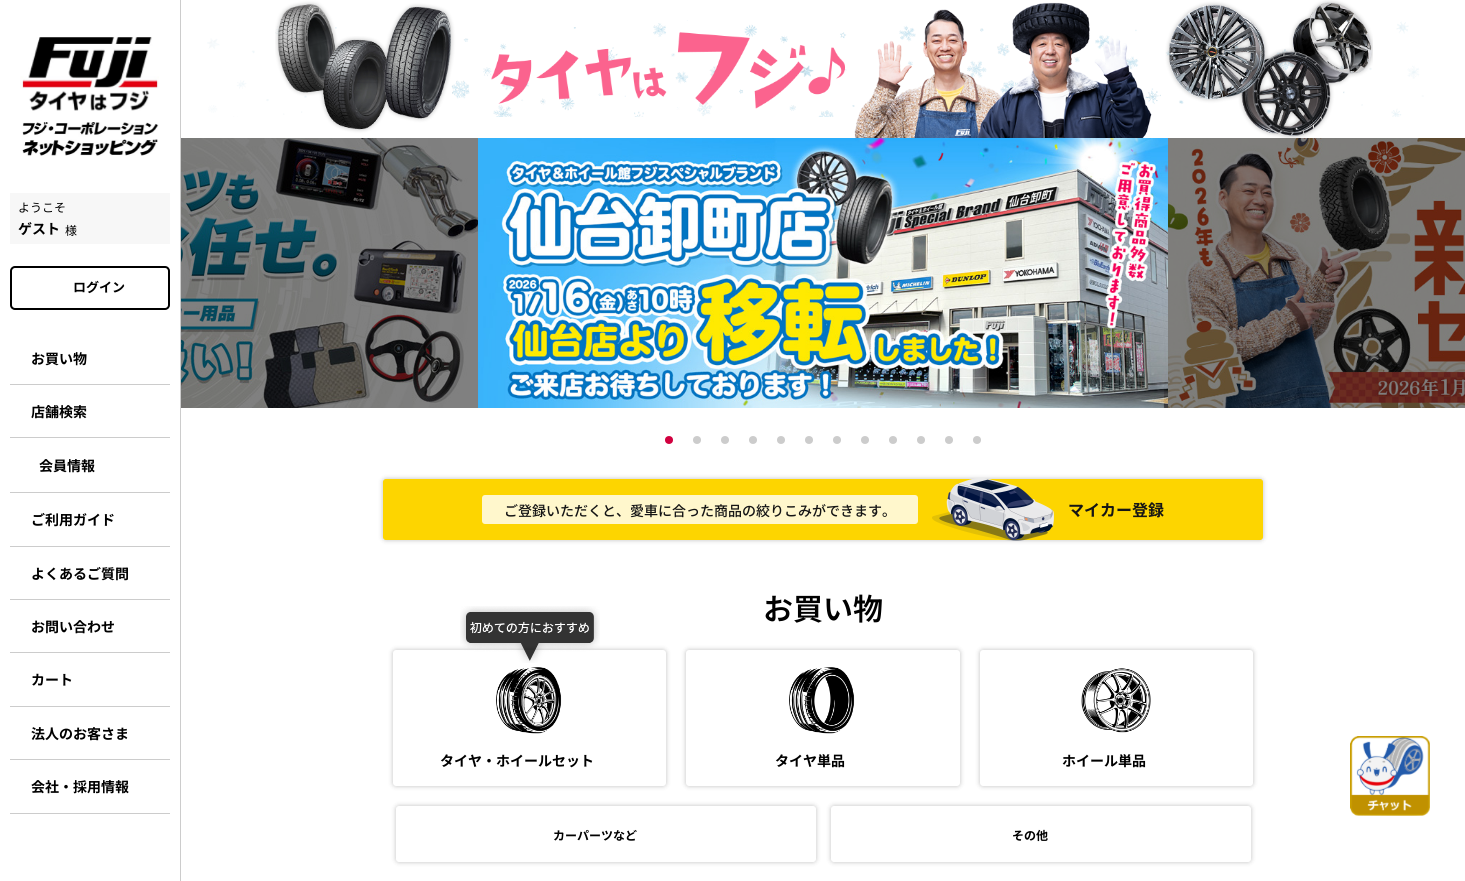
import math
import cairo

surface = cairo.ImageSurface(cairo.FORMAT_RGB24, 1465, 881)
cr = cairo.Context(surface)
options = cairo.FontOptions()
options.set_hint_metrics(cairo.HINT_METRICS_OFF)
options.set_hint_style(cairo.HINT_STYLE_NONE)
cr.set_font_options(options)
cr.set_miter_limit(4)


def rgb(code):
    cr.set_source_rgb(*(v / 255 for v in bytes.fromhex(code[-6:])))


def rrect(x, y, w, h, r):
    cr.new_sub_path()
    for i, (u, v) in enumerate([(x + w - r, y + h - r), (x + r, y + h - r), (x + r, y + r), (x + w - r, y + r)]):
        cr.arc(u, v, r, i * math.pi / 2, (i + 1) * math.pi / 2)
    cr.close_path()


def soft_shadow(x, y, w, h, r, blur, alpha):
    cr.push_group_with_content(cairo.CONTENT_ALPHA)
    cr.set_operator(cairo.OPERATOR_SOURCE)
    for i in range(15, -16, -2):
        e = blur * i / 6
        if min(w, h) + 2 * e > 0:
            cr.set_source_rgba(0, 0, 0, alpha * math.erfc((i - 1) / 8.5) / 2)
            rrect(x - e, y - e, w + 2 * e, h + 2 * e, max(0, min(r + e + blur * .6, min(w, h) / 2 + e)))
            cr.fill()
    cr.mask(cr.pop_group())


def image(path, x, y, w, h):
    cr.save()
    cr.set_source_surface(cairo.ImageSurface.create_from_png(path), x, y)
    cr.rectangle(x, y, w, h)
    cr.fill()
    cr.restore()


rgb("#ffffff")
cr.paint()
rgb("#cccccc")
cr.rectangle(180, 0, 1, 881)
cr.fill()
image("img/1.png", 20, 37, 139, 74)
image("img/2.png", 22, 122, 137, 34)
rgb("#f7f7f7")
cr.rectangle(10, 193, 160, 51)
cr.fill()
rrect(11, 267, 158, 42, 4)
rgb("#000000")
cr.stroke()
for x, y, w, h, color in [
    (10, 384, 160, 1, "#cccccc"),
    (10, 437, 160, 1, "#cccccc"),
    (10, 492, 160, 1, "#cccccc"),
    (10, 546, 160, 1, "#cccccc"),
    (10, 599, 160, 1, "#cccccc"),
    (10, 652, 160, 1, "#cccccc"),
    (10, 706, 160, 1, "#cccccc"),
    (10, 759, 160, 1, "#cccccc"),
    (10, 813, 160, 1, "#cccccc"),
]:
    rgb(color)
    cr.rectangle(x, y, w, h)
    cr.fill()
image("img/3.png", 207, 20, 1217, 97)
image("img/4.png", 275, 0, 1098, 138)
image("img/5.png", 181, 138, 297, 270)
image("img/6.png", 478, 138, 690, 270)
image("img/7.png", 1168, 138, 297, 270)
rgb("#d1003f")
cr.arc(669, 440, 4, 0, 2 * math.pi)
cr.fill()
rgb("#cccccc")
cr.arc(697, 440, 4, 0, 2 * math.pi)
cr.fill()
cr.arc(725, 440, 4, 0, 2 * math.pi)
cr.fill()
cr.arc(753, 440, 4, 0, 2 * math.pi)
cr.fill()
cr.arc(781, 440, 4, 0, 2 * math.pi)
cr.fill()
cr.arc(809, 440, 4, 0, 2 * math.pi)
cr.fill()
cr.arc(837, 440, 4, 0, 2 * math.pi)
cr.fill()
cr.arc(865, 440, 4, 0, 2 * math.pi)
cr.fill()
cr.arc(893, 440, 4, 0, 2 * math.pi)
cr.fill()
cr.arc(921, 440, 4, 0, 2 * math.pi)
cr.fill()
cr.arc(949, 440, 4, 0, 2 * math.pi)
cr.fill()
cr.arc(977, 440, 4, 0, 2 * math.pi)
cr.fill()
rgb("#000000")
soft_shadow(383, 479, 880, 61, 3, 2.5, 0.25)
rgb("#fdd500")
rrect(383.5, 479.5, 879, 60, 2.5)
cr.fill_preserve()
cr.set_line_width(1)
cr.stroke()
rgb("#fff7cc")
rrect(482, 495, 436, 29, 3)
cr.fill()
image("img/8.png", 932, 478, 122, 63)
rgb("#000000")
soft_shadow(393, 650, 273, 136, 3, 2.5, 0.25)
rgb("#ffffff")
rrect(393, 650, 273, 136, 3)
cr.fill()
image("img/9.png", 460, 606, 140, 57)
image("img/10.png", 496, 667, 66, 67)
rgb("#000000")
soft_shadow(686, 650, 274, 136, 3, 2.5, 0.25)
rgb("#ffffff")
rrect(686, 650, 274, 136, 3)
cr.fill()
image("img/11.png", 789, 667, 66, 67)
rgb("#000000")
soft_shadow(980, 650, 273, 136, 3, 2.5, 0.25)
rgb("#ffffff")
rrect(980, 650, 273, 136, 3)
cr.fill()
image("img/12.png", 1081, 668, 70, 65)
rgb("#000000")
soft_shadow(396, 806, 420, 56, 3, 2.5, 0.25)
rgb("#ffffff")
rrect(396.5, 806.5, 419, 55, 2.5)
cr.fill_preserve()
cr.stroke()
rgb("#000000")
soft_shadow(831, 806, 420, 56, 3, 2.5, 0.25)
rgb("#ffffff")
rrect(831.5, 806.5, 419, 55, 2.5)
cr.fill_preserve()
cr.stroke()
image("img/13.png", 1350, 736, 80, 80)
cr.select_font_face("Noto Sans JP")
cr.set_font_size(12)
rgb("#000000")
cr.move_to(18, 212)
cr.show_text("ようこそ")
cr.select_font_face("Noto Sans JP", cairo.FONT_SLANT_NORMAL, cairo.FONT_WEIGHT_BOLD)
cr.set_font_size(14)
cr.move_to(18, 234)
cr.show_text("ゲスト")
cr.select_font_face("Noto Sans JP")
cr.set_font_size(12)
cr.move_to(65, 235)
cr.show_text("様")
cr.select_font_face("Noto Sans JP", cairo.FONT_SLANT_NORMAL, cairo.FONT_WEIGHT_BOLD)
cr.set_font_size(13)
cr.move_to(73, 292)
cr.show_text("ログイン")
cr.set_font_size(14)
for x, y, s in [
    (31, 364, "お買い物"),
    (31, 417, "店舗検索"),
    (39, 471, "会員情報"),
    (31, 525, "ご利用ガイド"),
    (31, 579, "よくあるご質問"),
    (31, 632, "お問い合わせ"),
    (31, 685, "カート"),
    (31, 739, "法人のお客さま"),
    (31, 792, "会社・採用情報"),
]:
    cr.move_to(x, y)
    cr.show_text(s)
cr.select_font_face("Noto Sans JP Medium")
rgb("#151515")
cr.move_to(504, 516)
cr.show_text("ご登録いただくと、愛車に合った商品の絞りこみができます。")
cr.select_font_face("Noto Sans JP", cairo.FONT_SLANT_NORMAL, cairo.FONT_WEIGHT_BOLD)
cr.set_font_size(16)
cr.move_to(1068, 516)
cr.show_text("マイカー登録")
cr.select_font_face("Noto Sans JP SemiBold")
cr.set_font_size(30)
rgb("#000000")
cr.move_to(763, 620)
cr.show_text("お買い物")
cr.select_font_face("Noto Sans JP", cairo.FONT_SLANT_NORMAL, cairo.FONT_WEIGHT_BOLD)
cr.set_font_size(14)
for x, y, s in [
    (440, 766, "タイヤ・ホイールセット"),
    (775, 766, "タイヤ単品"),
    (1062, 766, "ホイール単品"),
]:
    cr.move_to(x, y)
    cr.show_text(s)
cr.set_font_size(12)
cr.move_to(553, 840)
cr.show_text("カーパーツなど")
cr.move_to(1012, 840)
cr.show_text("その他")
surface.write_to_png("page.png")
